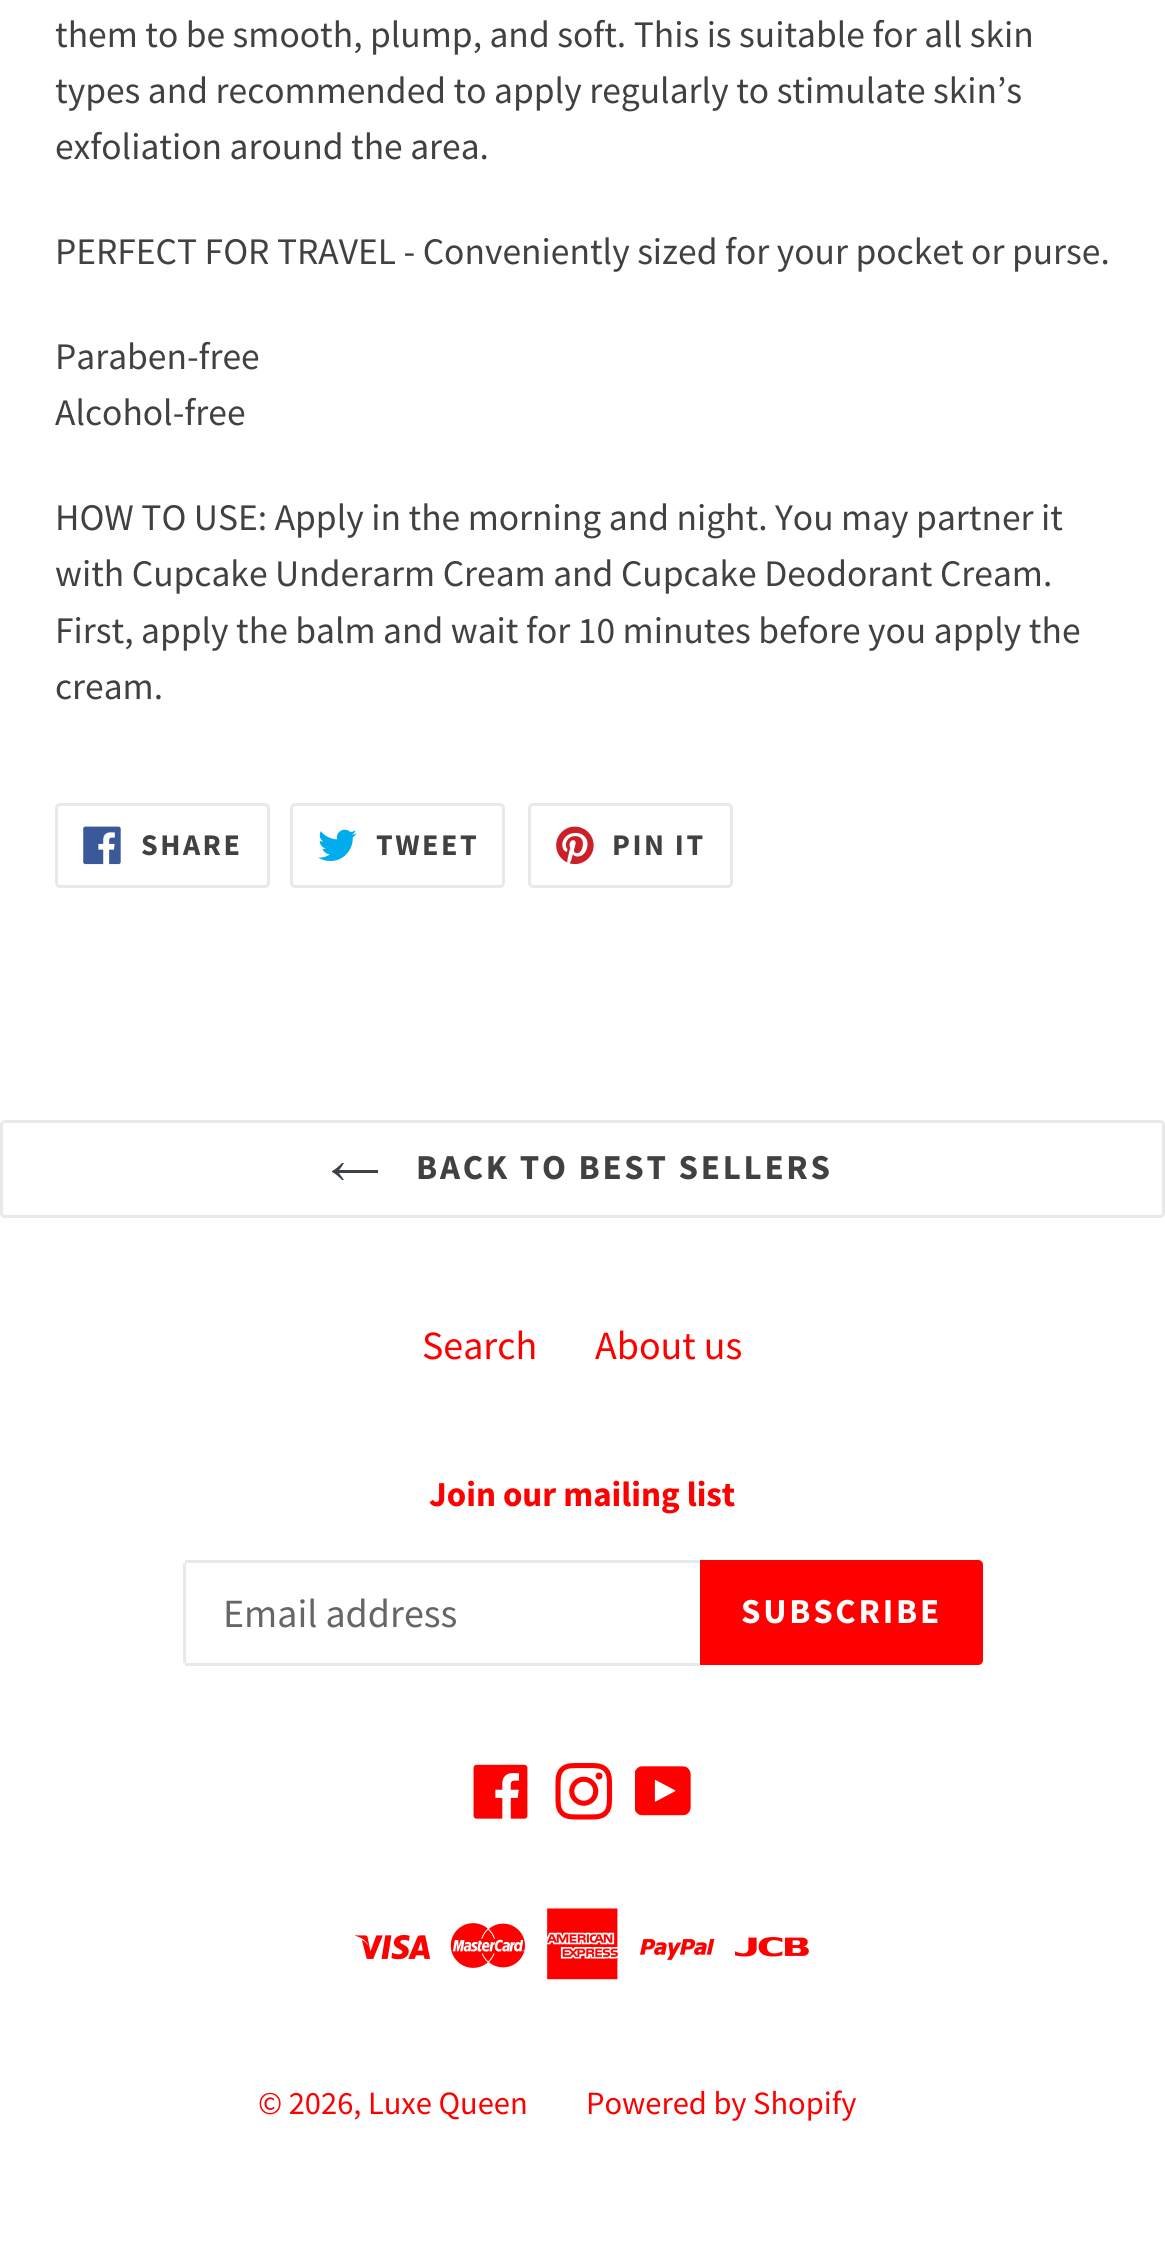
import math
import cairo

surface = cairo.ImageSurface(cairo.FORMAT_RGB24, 1165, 2267)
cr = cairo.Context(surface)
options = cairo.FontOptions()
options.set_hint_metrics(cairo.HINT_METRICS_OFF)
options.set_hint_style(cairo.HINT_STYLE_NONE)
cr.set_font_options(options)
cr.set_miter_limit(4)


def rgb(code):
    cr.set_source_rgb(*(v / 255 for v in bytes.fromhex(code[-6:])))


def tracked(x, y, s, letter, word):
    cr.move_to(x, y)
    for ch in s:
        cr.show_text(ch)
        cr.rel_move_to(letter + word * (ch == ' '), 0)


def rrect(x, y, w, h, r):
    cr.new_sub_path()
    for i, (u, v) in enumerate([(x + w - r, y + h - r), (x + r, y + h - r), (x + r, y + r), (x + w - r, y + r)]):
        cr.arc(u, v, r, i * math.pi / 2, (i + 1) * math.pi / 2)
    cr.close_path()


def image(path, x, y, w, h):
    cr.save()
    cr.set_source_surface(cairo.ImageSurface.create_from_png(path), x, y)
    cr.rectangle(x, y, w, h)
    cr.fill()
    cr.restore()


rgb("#ffffff")
cr.paint()
rrect(56.5, 804.5, 212, 82, 3.5)
rgb("#e8e9eb")
cr.set_line_width(3)
cr.stroke()
image("img/1.png", 83, 826, 38, 39)
rrect(291.5, 804.5, 212, 82, 3.5)
cr.stroke()
image("img/2.png", 318, 829, 39, 32)
rrect(529.5, 804.5, 202, 82, 3.5)
cr.stroke()
image("img/3.png", 556, 826, 38, 39)
rrect(1.5, 1121.5, 1162, 95, 3.5)
cr.stroke()
rgb("#3d4246")
cr.set_fill_rule(cairo.FILL_RULE_EVEN_ODD)
cr.new_path()
cr.move_to(342, 1180)
cr.curve_to(339, 1177, 336, 1174, 332, 1172)
cr.line_to(332, 1171)
cr.curve_to(336, 1169, 339, 1166, 342, 1163)
cr.line_to(344, 1163)
cr.curve_to(342, 1166, 341, 1168, 339, 1170)
cr.line_to(378, 1170)
cr.line_to(378, 1173)
cr.line_to(339, 1173)
cr.line_to(344, 1180)
cr.close_path()
cr.fill()
for x, y, w, h, color in [
    (185, 1560, 515, 3, "#e8e9eb"),
    (185, 1663, 515, 3, "#e8e9eb"),
    (183, 1563, 3, 100, "#e8e9eb"),
]:
    rgb(color)
    cr.rectangle(x, y, w, h)
    cr.fill()
rgb("#ff0000")
cr.new_path()
cr.move_to(700, 1560)
cr.line_to(978, 1560)
cr.curve_to(981, 1560, 983, 1562, 983, 1565)
cr.line_to(983, 1660)
cr.curve_to(983, 1663, 981, 1665, 978, 1665)
cr.line_to(700, 1665)
cr.close_path()
cr.fill()
image("img/4.png", 473, 1764, 55, 55)
image("img/5.png", 555, 1763, 58, 57)
image("img/6.png", 635, 1766, 56, 50)
image("img/7.png", 355, 1934, 75, 26)
image("img/8.png", 450, 1923, 75, 45)
image("img/9.png", 547, 1908, 71, 72)
image("img/10.png", 640, 1939, 75, 21)
image("img/11.png", 735, 1937, 74, 20)
cr.select_font_face("Source Sans Pro")
cr.set_font_size(37.5)
rgb("#414141")
for x, y, s in [
    (55, 47, "them to be smooth, plump, and soft. This is suitable for all skin"),
    (55, 103, "types and recommended to apply regularly to stimulate skin’s"),
    (55, 159, "exfoliation around the area."),
    (55, 264, "PERFECT FOR TRAVEL - Conveniently sized for your pocket or purse."),
    (55, 369, "Paraben-free"),
    (55, 425, "Alcohol-free"),
    (55, 530, "HOW TO USE: Apply in the morning and night. You may partner it"),
    (55, 586, "with Cupcake Underarm Cream and Cupcake Deodorant Cream."),
    (55, 643, "First, apply the balm and wait for 10 minutes before you apply the"),
    (55, 699, "cream."),
]:
    cr.move_to(x, y)
    cr.show_text(s)
cr.select_font_face("Source Sans Pro", cairo.FONT_SLANT_NORMAL, cairo.FONT_WEIGHT_BOLD)
cr.set_font_size(30)
for x, y, s in [
    (141, 855, "SHARE"),
    (376, 855, "TWEET"),
    (612, 855, "PIN IT"),
]:
    tracked(x, y, s, 2.5, 0)
cr.set_font_size(35)
tracked(416, 1179, "BACK TO BEST SELLERS", 2.75, 0)
cr.select_font_face("Source Sans Pro")
cr.set_font_size(40)
rgb("#ff0000")
cr.move_to(422, 1359)
cr.show_text("Search")
cr.move_to(595, 1359)
cr.show_text("About us")
cr.select_font_face("Source Sans Pro", cairo.FONT_SLANT_NORMAL, cairo.FONT_WEIGHT_BOLD)
cr.set_font_size(35)
cr.move_to(429, 1506)
cr.show_text("Join our mailing list")
cr.select_font_face("Source Sans Pro")
cr.set_font_size(40)
rgb("#666666")
cr.move_to(223, 1627)
cr.show_text("Email address")
cr.select_font_face("Source Sans Pro", cairo.FONT_SLANT_NORMAL, cairo.FONT_WEIGHT_BOLD)
cr.set_font_size(35)
rgb("#ffffff")
tracked(741, 1623, "SUBSCRIBE", 2.75, 0)
cr.select_font_face("Source Sans Pro")
cr.set_font_size(32.5)
rgb("#ff0000")
cr.move_to(258, 2114)
cr.show_text("© 2026, Luxe Queen")
cr.move_to(586, 2114)
cr.show_text("Powered by Shopify")
surface.write_to_png("page.png")
